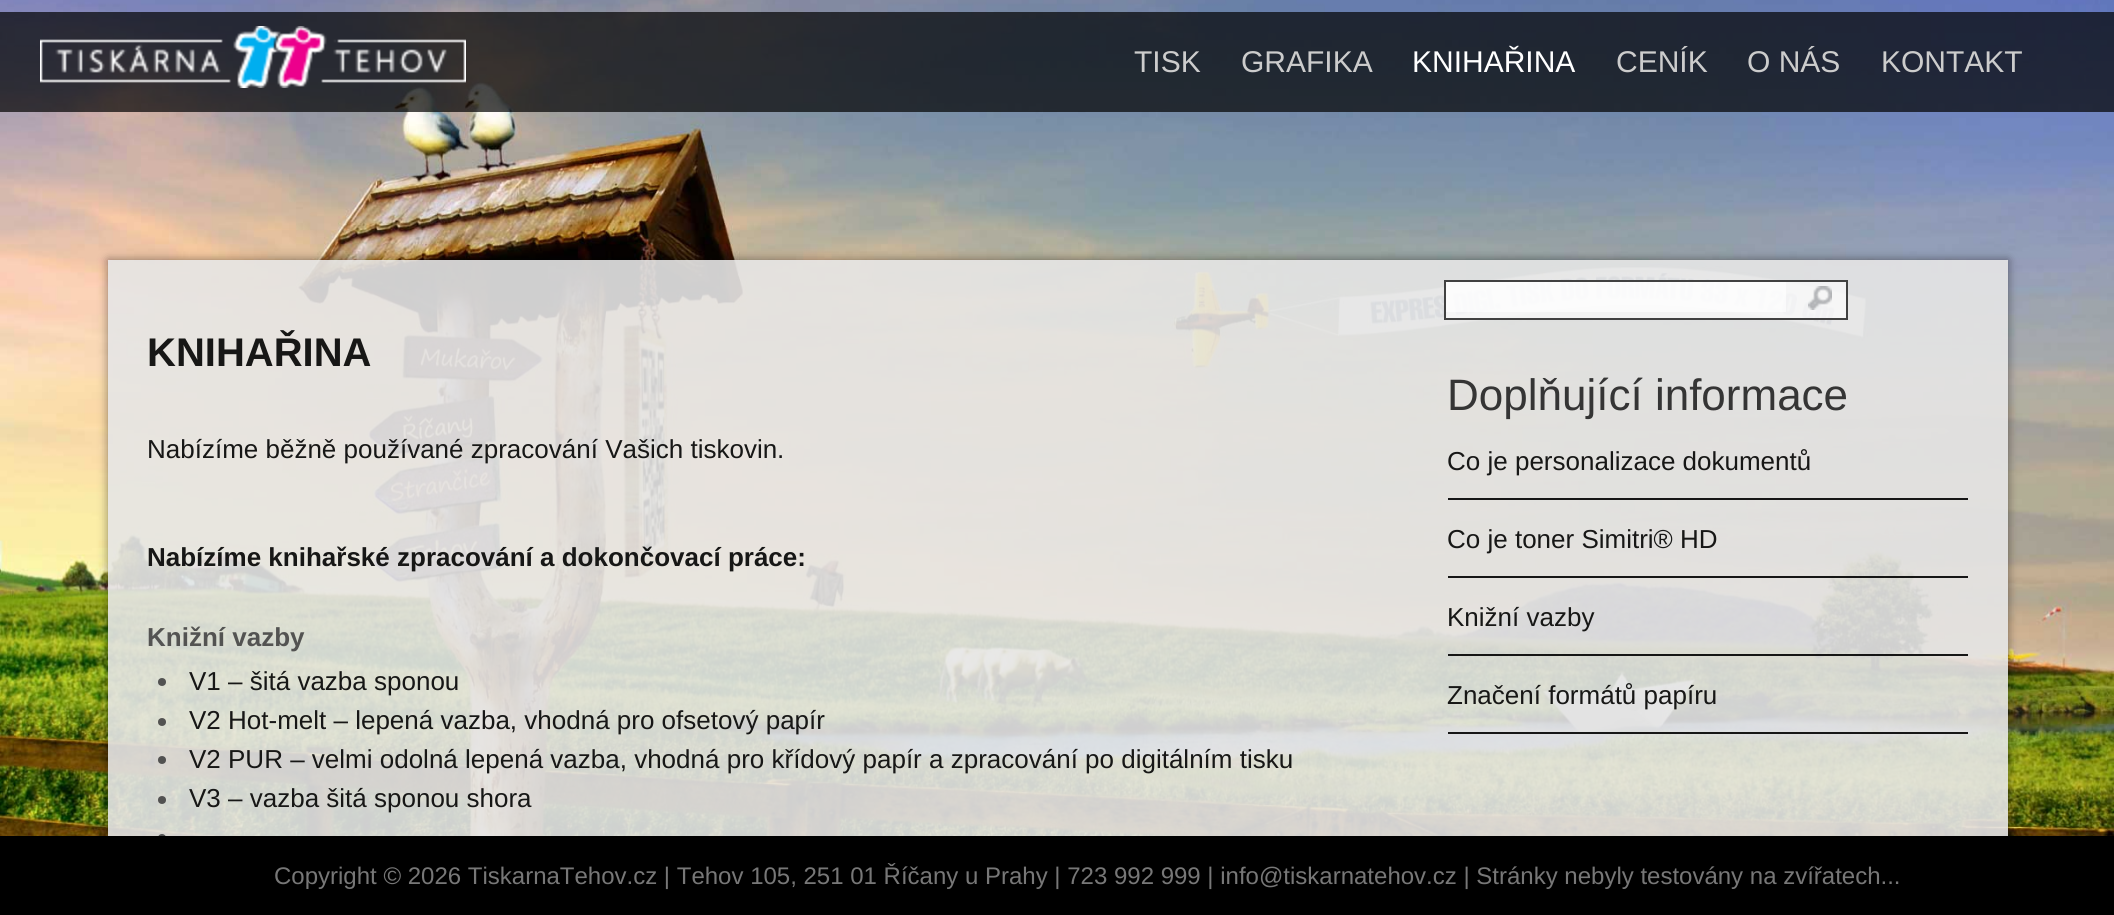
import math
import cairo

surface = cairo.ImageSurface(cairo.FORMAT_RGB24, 2114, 915)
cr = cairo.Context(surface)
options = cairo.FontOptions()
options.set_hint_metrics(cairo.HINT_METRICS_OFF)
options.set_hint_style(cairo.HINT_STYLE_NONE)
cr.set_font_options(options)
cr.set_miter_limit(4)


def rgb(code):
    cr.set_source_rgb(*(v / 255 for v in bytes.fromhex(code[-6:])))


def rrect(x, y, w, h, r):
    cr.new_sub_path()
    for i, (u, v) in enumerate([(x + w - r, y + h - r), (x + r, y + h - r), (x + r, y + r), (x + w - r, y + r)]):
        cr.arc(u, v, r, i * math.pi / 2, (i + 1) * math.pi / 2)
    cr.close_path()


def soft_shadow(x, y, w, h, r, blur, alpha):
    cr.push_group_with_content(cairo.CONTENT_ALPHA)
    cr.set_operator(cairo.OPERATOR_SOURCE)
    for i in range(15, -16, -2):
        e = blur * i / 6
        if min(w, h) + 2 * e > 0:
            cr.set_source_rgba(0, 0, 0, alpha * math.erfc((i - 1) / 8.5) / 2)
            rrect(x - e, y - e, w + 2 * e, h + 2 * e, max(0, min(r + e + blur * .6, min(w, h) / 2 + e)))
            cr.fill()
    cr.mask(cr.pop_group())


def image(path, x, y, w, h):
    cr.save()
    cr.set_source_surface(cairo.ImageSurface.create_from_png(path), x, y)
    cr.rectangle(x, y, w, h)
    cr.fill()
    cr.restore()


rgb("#ffffff")
cr.paint()
image("img/1.png", 0, 0, 2114, 836)
cr.set_source_rgba(0, 0, 0, 0.7)
cr.rectangle(0, 12, 2114, 100)
cr.fill()
image("img/2.png", 40, 26, 426, 62)
cr.save()
cr.set_fill_rule(cairo.FILL_RULE_EVEN_ODD)
cr.new_path()
cr.move_to(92, 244)
cr.line_to(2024, 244)
cr.line_to(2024, 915)
cr.line_to(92, 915)
cr.close_path()
cr.move_to(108, 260)
cr.line_to(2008, 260)
cr.line_to(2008, 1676)
cr.line_to(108, 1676)
cr.close_path()
cr.clip()
rgb("#000000")
soft_shadow(108, 260, 1900, 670, 0, 5, 0.45)
cr.restore()
cr.set_source_rgba(0.902, 0.902, 0.902, 0.9)
cr.rectangle(108, 260, 1900, 576)
cr.fill()
cr.set_source_rgba(1, 1, 1, 0.63)
cr.rectangle(1444, 280, 404, 40)
cr.fill()
cr.rectangle(1445, 281, 402, 38)
cr.set_source_rgba(0.18, 0.18, 0.18, 0.9)
cr.stroke()
cr.set_source_rgba(1, 1, 1, 0.63)
cr.rectangle(1446, 282, 340, 30)
cr.fill()
image("img/3.png", 1808, 286, 24, 24)
cr.set_source_rgba(0.267, 0.267, 0.267, 0.9)
cr.arc(162, 682, 4, 0, 2 * math.pi)
cr.fill()
cr.arc(162, 722, 4, 0, 2 * math.pi)
cr.fill()
cr.arc(162, 760, 4, 0, 2 * math.pi)
cr.fill()
cr.arc(162, 800, 4, 0, 2 * math.pi)
cr.fill()
cr.arc(162, 838, 4, 0, 2 * math.pi)
cr.fill()
cr.set_source_rgba(0, 0, 0, 0.9)
cr.rectangle(1448, 498, 520, 2)
cr.fill()
cr.rectangle(1448, 576, 520, 2)
cr.fill()
cr.rectangle(1448, 654, 520, 2)
cr.fill()
cr.rectangle(1448, 732, 520, 2)
cr.fill()
rgb("#000000")
cr.rectangle(0, 836, 2114, 79)
cr.fill()
cr.select_font_face("Liberation Sans")
cr.set_font_size(30)
rgb("#cccccc")
cr.move_to(1134, 72)
cr.show_text("TISK")
cr.move_to(1241, 72)
cr.show_text("GRAFIKA")
rgb("#ffffff")
cr.move_to(1412, 72)
cr.show_text("KNIHAŘINA")
rgb("#cccccc")
for x, y, s in [
    (1616, 72, "CENÍK"),
    (1747, 72, "O NÁS"),
    (1881, 72, "KONTAKT"),
]:
    cr.move_to(x, y)
    cr.show_text(s)
cr.select_font_face("Liberation Sans", cairo.FONT_SLANT_NORMAL, cairo.FONT_WEIGHT_BOLD)
cr.set_font_size(40)
rgb("#171716")
cr.move_to(147, 366)
cr.show_text("KNIHAŘINA")
cr.select_font_face("Liberation Sans")
cr.set_font_size(26)
cr.move_to(147, 458)
cr.show_text("Nabízíme běžně používané zpracování Vašich tiskovin.")
cr.select_font_face("Liberation Sans", cairo.FONT_SLANT_NORMAL, cairo.FONT_WEIGHT_BOLD)
cr.move_to(147, 566)
cr.show_text("Nabízíme knihařské zpracování a dokončovací práce:")
rgb("#535352")
cr.move_to(147, 646)
cr.show_text("Knižní vazby")
cr.select_font_face("Liberation Sans")
rgb("#171716")
for x, y, s in [
    (189, 690, "V1 – šitá vazba sponou"),
    (189, 729, "V2 Hot-melt – lepená vazba, vhodná pro ofsetový papír"),
    (189, 768, "V2 PUR – velmi odolná lepená vazba, vhodná pro křídový papír a zpracování po digitálním tisku"),
    (189, 807, "V3 – vazba šitá sponou shora"),
]:
    cr.move_to(x, y)
    cr.show_text(s)
cr.set_font_size(44)
rgb("#353535")
cr.move_to(1447, 410)
cr.show_text("Doplňující informace")
cr.set_font_size(26)
rgb("#171716")
for x, y, s in [
    (1447, 470, "Co je personalizace dokumentů"),
    (1447, 548, "Co je toner Simitri® HD"),
    (1447, 626, "Knižní vazby"),
    (1447, 704, "Značení formátů papíru"),
]:
    cr.move_to(x, y)
    cr.show_text(s)
cr.set_font_size(24)
rgb("#777777")
cr.move_to(274, 884)
cr.show_text("Copyright © 2026 TiskarnaTehov.cz | Tehov 105, 251 01 Říčany u Prahy | 723 992 999 | info@tiskarnatehov.cz | Stránky nebyly testovány na zvířatech...")
surface.write_to_png("page.png")
